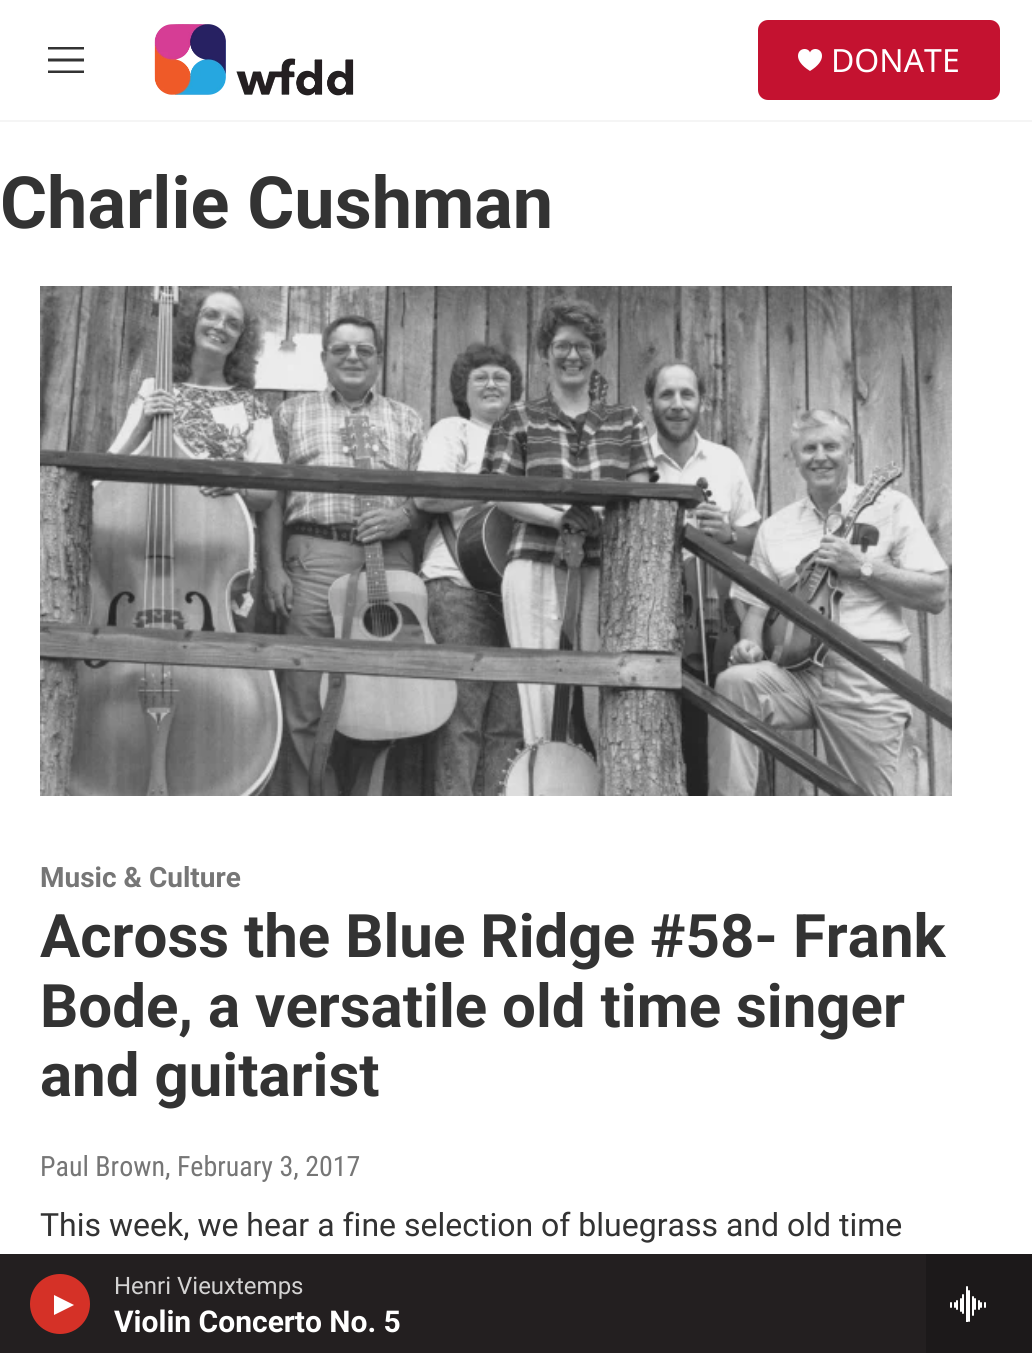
import math
import cairo

surface = cairo.ImageSurface(cairo.FORMAT_RGB24, 1032, 1353)
cr = cairo.Context(surface)
options = cairo.FontOptions()
options.set_hint_metrics(cairo.HINT_METRICS_OFF)
options.set_hint_style(cairo.HINT_STYLE_NONE)
cr.set_font_options(options)
cr.set_miter_limit(4)


def rgb(code):
    cr.set_source_rgb(*(v / 255 for v in bytes.fromhex(code[-6:])))


def rrect(x, y, w, h, r):
    cr.new_sub_path()
    for i, (u, v) in enumerate([(x + w - r, y + h - r), (x + r, y + h - r), (x + r, y + r), (x + w - r, y + r)]):
        cr.arc(u, v, r, i * math.pi / 2, (i + 1) * math.pi / 2)
    cr.close_path()


def image(path, x, y, w, h):
    cr.save()
    cr.set_source_surface(cairo.ImageSurface.create_from_png(path), x, y)
    cr.rectangle(x, y, w, h)
    cr.fill()
    cr.restore()


rgb("#ffffff")
cr.paint()
rgb("#f5f5f5")
cr.rectangle(0, 120, 1032, 2)
cr.fill()
rgb("#333333")
cr.set_fill_rule(cairo.FILL_RULE_EVEN_ODD)
cr.new_path()
cr.move_to(48, 61.5)
cr.line_to(48, 58.5)
cr.line_to(84, 58.5)
cr.line_to(84, 61.5)
cr.close_path()
cr.move_to(48, 49.5)
cr.line_to(48, 47)
cr.line_to(84, 47)
cr.line_to(84, 49.5)
cr.close_path()
cr.move_to(48, 73)
cr.line_to(48, 70.5)
cr.line_to(84, 70.5)
cr.line_to(84, 73)
cr.close_path()
cr.fill()
image("img/1.png", 154, 24, 200, 72)
rgb("#c41230")
rrect(758, 20, 242, 80, 10)
cr.fill()
image("img/2.png", 798, 49, 24, 22)
rgb("#231f20")
cr.rectangle(0, 1254, 926, 99)
cr.fill()
rgb("#d53127")
cr.arc(60, 1304, 30, 0, 2 * math.pi)
cr.fill()
rgb("#ffffff")
cr.set_fill_rule(cairo.FILL_RULE_WINDING)
cr.new_path()
cr.move_to(54, 1295)
cr.line_to(74, 1305)
cr.line_to(54, 1315)
cr.close_path()
cr.fill()
rgb("#1c191a")
cr.rectangle(926, 1254, 106, 99)
cr.fill()
image("img/3.png", 950, 1286, 36, 36)
image("img/4.png", 40, 286, 912, 510)
cr.select_font_face("Noto Sans")
cr.set_font_size(32)
rgb("#ffffff")
cr.move_to(831, 72)
cr.show_text("DONATE")
cr.select_font_face("Roboto")
cr.set_font_size(24)
rgb("#d3d2d2")
cr.move_to(114, 1294)
cr.show_text("Henri Vieuxtemps")
cr.select_font_face("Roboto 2", cairo.FONT_SLANT_NORMAL, cairo.FONT_WEIGHT_BOLD)
cr.set_font_size(30)
rgb("#ffffff")
cr.move_to(114, 1332)
cr.show_text("Violin Concerto No. 5")
cr.select_font_face("Roboto", cairo.FONT_SLANT_NORMAL, cairo.FONT_WEIGHT_BOLD)
cr.set_font_size(72)
rgb("#333333")
cr.move_to(0, 228)
cr.show_text("Charlie Cushman")
cr.set_font_size(28)
rgb("#767676")
cr.move_to(40, 887)
cr.show_text("Music & Culture")
cr.set_font_size(60)
rgb("#333333")
for x, y, s in [
    (40, 957, "Across the Blue Ridge #58- Frank"),
    (40, 1027, "Bode, a versatile old time singer"),
    (40, 1096, "and guitarist"),
]:
    cr.move_to(x, y)
    cr.show_text(s)
cr.select_font_face("Roboto Condensed")
cr.set_font_size(28)
rgb("#767676")
cr.move_to(40, 1176)
cr.show_text("Paul Brown, February 3, 2017")
cr.select_font_face("Roboto")
cr.set_font_size(32)
rgb("#333333")
cr.move_to(40, 1236)
cr.show_text("This week, we hear a fine selection of bluegrass and old time")
surface.write_to_png("page.png")
